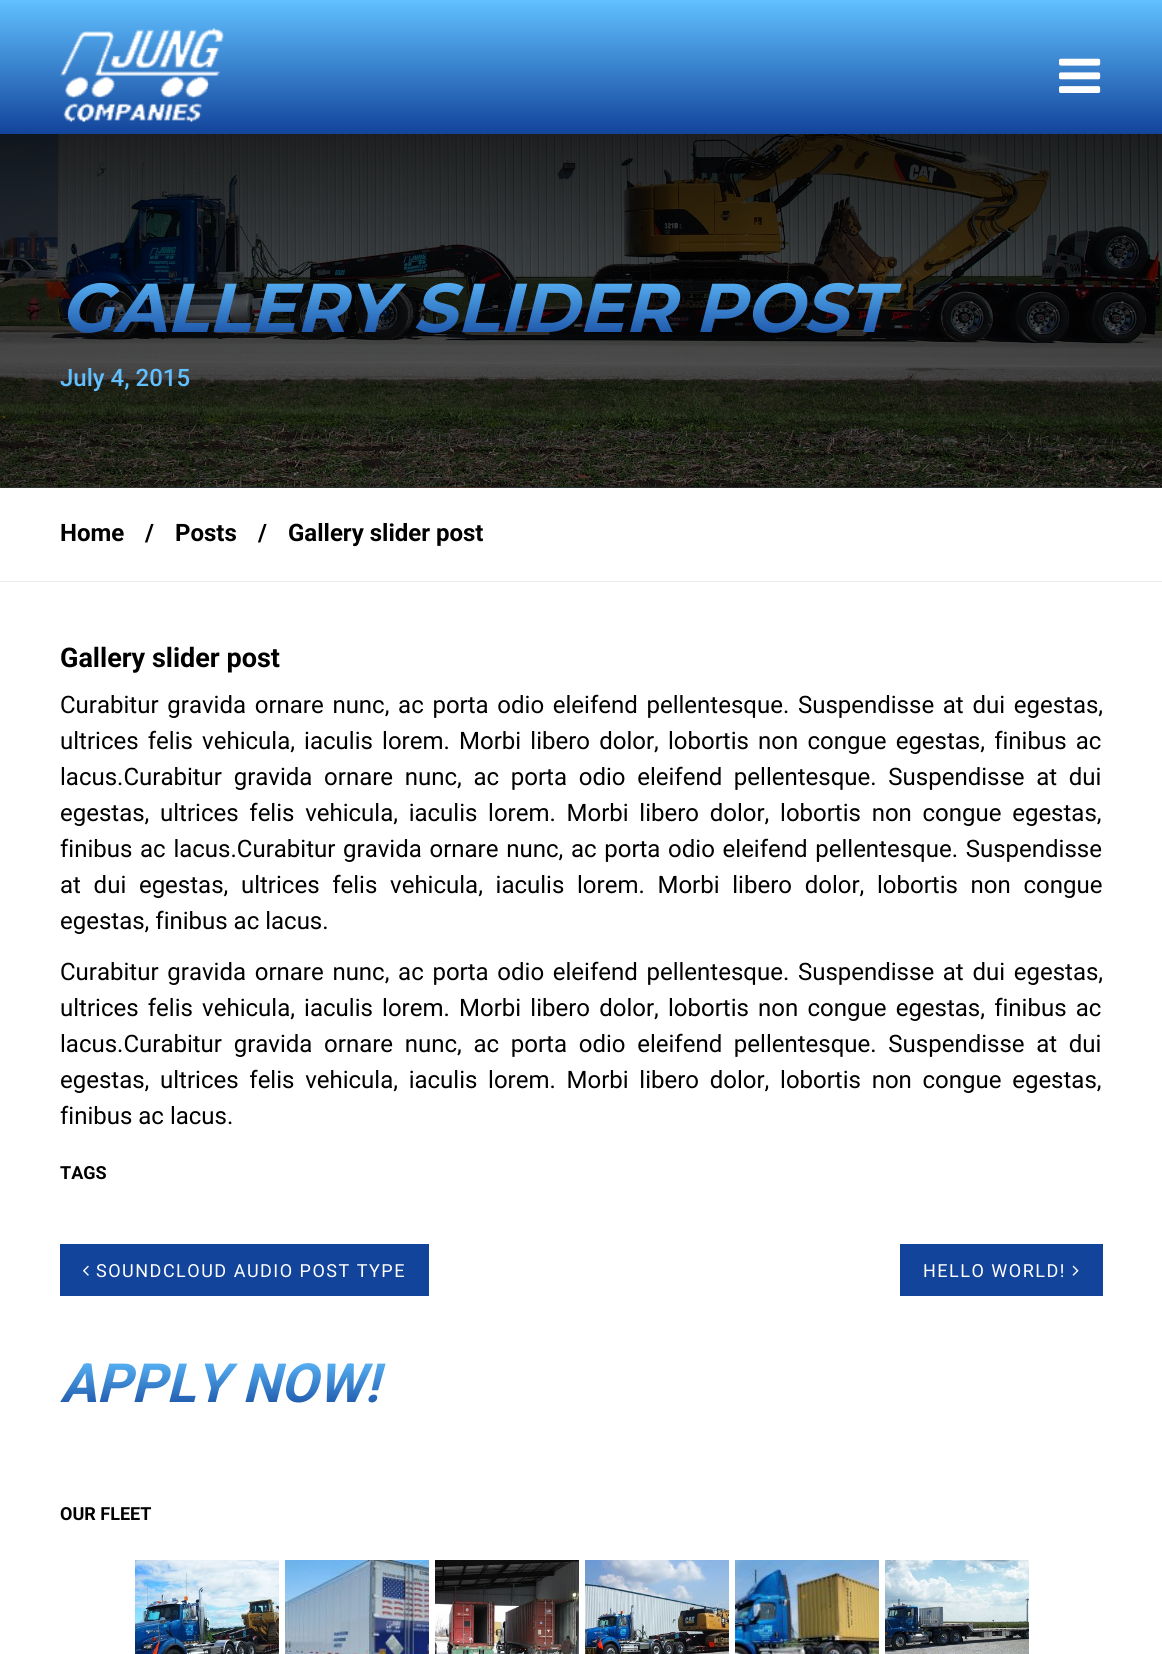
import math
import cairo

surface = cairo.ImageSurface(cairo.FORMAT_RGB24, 1162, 1654)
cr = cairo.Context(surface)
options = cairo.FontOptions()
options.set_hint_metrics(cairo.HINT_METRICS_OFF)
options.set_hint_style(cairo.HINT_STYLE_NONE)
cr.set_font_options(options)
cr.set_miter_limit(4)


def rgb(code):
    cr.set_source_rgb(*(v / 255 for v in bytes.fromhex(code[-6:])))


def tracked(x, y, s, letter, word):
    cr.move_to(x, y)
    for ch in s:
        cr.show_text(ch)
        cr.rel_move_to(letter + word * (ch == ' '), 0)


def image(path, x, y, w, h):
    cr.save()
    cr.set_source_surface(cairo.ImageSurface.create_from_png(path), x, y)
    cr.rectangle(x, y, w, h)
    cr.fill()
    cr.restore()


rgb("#ffffff")
cr.paint()
gradient = cairo.LinearGradient(581, 0, 581, 134)
gradient.add_color_stop_rgba(0, 0.38, 0.753, 1, 1)
gradient.add_color_stop_rgba(1, 0.071, 0.267, 0.608, 1)
cr.set_source(gradient)
cr.rectangle(0, 0, 1162, 134)
cr.fill()
image("img/1.png", 60, 28, 164, 94)
image("img/2.png", 1059, 58, 42, 35)
rgb("#9da6af")
cr.rectangle(0, 487, 1162, 1)
cr.fill()
image("img/3.png", 0, 487, 1162, 1)
image("img/4.png", 0, 134, 1162, 354)
gradient = cairo.LinearGradient(581, 0, 581, 975)
gradient.add_color_stop_rgba(0, 0, 0, 0, 1)
gradient.add_color_stop_rgba(1, 0, 0, 0, 0)
cr.set_source(gradient)
cr.rectangle(0, 134, 1162, 354)
cr.fill()
rgb("#e7eaeb")
cr.rectangle(0, 581, 1162, 1)
cr.fill()
rgb("#12449b")
cr.rectangle(60, 1244, 369, 52)
cr.fill()
image("img/5.png", 83, 1265, 6, 11)
cr.rectangle(900, 1244, 203, 52)
cr.fill()
image("img/6.png", 1072, 1265, 7, 11)
image("img/7.png", 135, 1560, 144, 94)
image("img/8.png", 285, 1560, 144, 94)
image("img/9.png", 435, 1560, 144, 94)
image("img/10.png", 585, 1560, 144, 94)
image("img/11.png", 735, 1560, 144, 94)
image("img/12.png", 885, 1560, 144, 94)
cr.select_font_face("Montserrat", cairo.FONT_SLANT_ITALIC, cairo.FONT_WEIGHT_BOLD)
cr.set_font_size(69)
gradient = cairo.LinearGradient(581, 270, 581, 346)
gradient.add_color_stop_rgba(0, 0.38, 0.753, 1, 1)
gradient.add_color_stop_rgba(1, 0.071, 0.267, 0.608, 1)
cr.set_source(gradient)
cr.move_to(60, 332)
cr.show_text("GALLERY SLIDER POST")
cr.select_font_face("Roboto Medium")
cr.set_font_size(24)
rgb("#61c0ff")
cr.move_to(60, 386)
cr.show_text("July 4, 2015")
cr.select_font_face("Roboto", cairo.FONT_SLANT_NORMAL, cairo.FONT_WEIGHT_BOLD)
rgb("#000000")
for x, y, s in [
    (60, 541, "Home"),
    (145, 541, "/"),
    (175, 541, "Posts"),
    (258, 541, "/"),
    (288, 541, "Gallery slider post"),
]:
    cr.move_to(x, y)
    cr.show_text(s)
cr.set_font_size(27)
cr.move_to(60, 667)
cr.show_text("Gallery slider post")
cr.select_font_face("Roboto")
cr.set_font_size(24)
tracked(60, 713, "Curabitur gravida ornare nunc, ac porta odio eleifend pellentesque. Suspendisse at dui egestas,", 0, 2.75)
tracked(60, 749, "ultrices felis vehicula, iaculis lorem. Morbi libero dolor, lobortis non congue egestas, finibus ac", 0, 3.25)
tracked(60, 785, "lacus.Curabitur gravida ornare nunc, ac porta odio eleifend pellentesque. Suspendisse at dui", 0, 5.75)
tracked(60, 821, "egestas, ultrices felis vehicula, iaculis lorem. Morbi libero dolor, lobortis non congue egestas,", 0, 4.75)
tracked(60, 857, "finibus ac lacus.Curabitur gravida ornare nunc, ac porta odio eleifend pellentesque. Suspendisse", 0, 1.75)
tracked(60, 893, "at dui egestas, ultrices felis vehicula, iaculis lorem. Morbi libero dolor, lobortis non congue", 0, 6.75)
cr.move_to(60, 929)
cr.show_text("egestas, finibus ac lacus.")
tracked(60, 980, "Curabitur gravida ornare nunc, ac porta odio eleifend pellentesque. Suspendisse at dui egestas,", 0, 2.75)
tracked(60, 1016, "ultrices felis vehicula, iaculis lorem. Morbi libero dolor, lobortis non congue egestas, finibus ac", 0, 3.25)
tracked(60, 1052, "lacus.Curabitur gravida ornare nunc, ac porta odio eleifend pellentesque. Suspendisse at dui", 0, 5.75)
tracked(60, 1088, "egestas, ultrices felis vehicula, iaculis lorem. Morbi libero dolor, lobortis non congue egestas,", 0, 4.75)
cr.move_to(60, 1124)
cr.show_text("finibus ac lacus.")
cr.select_font_face("Roboto", cairo.FONT_SLANT_NORMAL, cairo.FONT_WEIGHT_BOLD)
cr.set_font_size(18)
cr.move_to(60, 1179)
cr.show_text("TAGS")
cr.select_font_face("Roboto")
rgb("#ffffff")
tracked(96, 1277, "SOUNDCLOUD AUDIO POST TYPE", 1.5, 0)
tracked(923, 1277, "HELLO WORLD!", 1.5, 0)
cr.select_font_face("Roboto", cairo.FONT_SLANT_ITALIC, cairo.FONT_WEIGHT_BOLD)
cr.set_font_size(54)
gradient = cairo.LinearGradient(581, 1355, 581, 1415)
gradient.add_color_stop_rgba(0, 0.38, 0.753, 1, 1)
gradient.add_color_stop_rgba(1, 0.071, 0.267, 0.608, 1)
cr.set_source(gradient)
cr.move_to(60, 1402)
cr.show_text("APPLY NOW!")
cr.select_font_face("Roboto", cairo.FONT_SLANT_NORMAL, cairo.FONT_WEIGHT_BOLD)
cr.set_font_size(18)
rgb("#000000")
cr.move_to(60, 1520)
cr.show_text("OUR FLEET")
surface.write_to_png("page.png")
